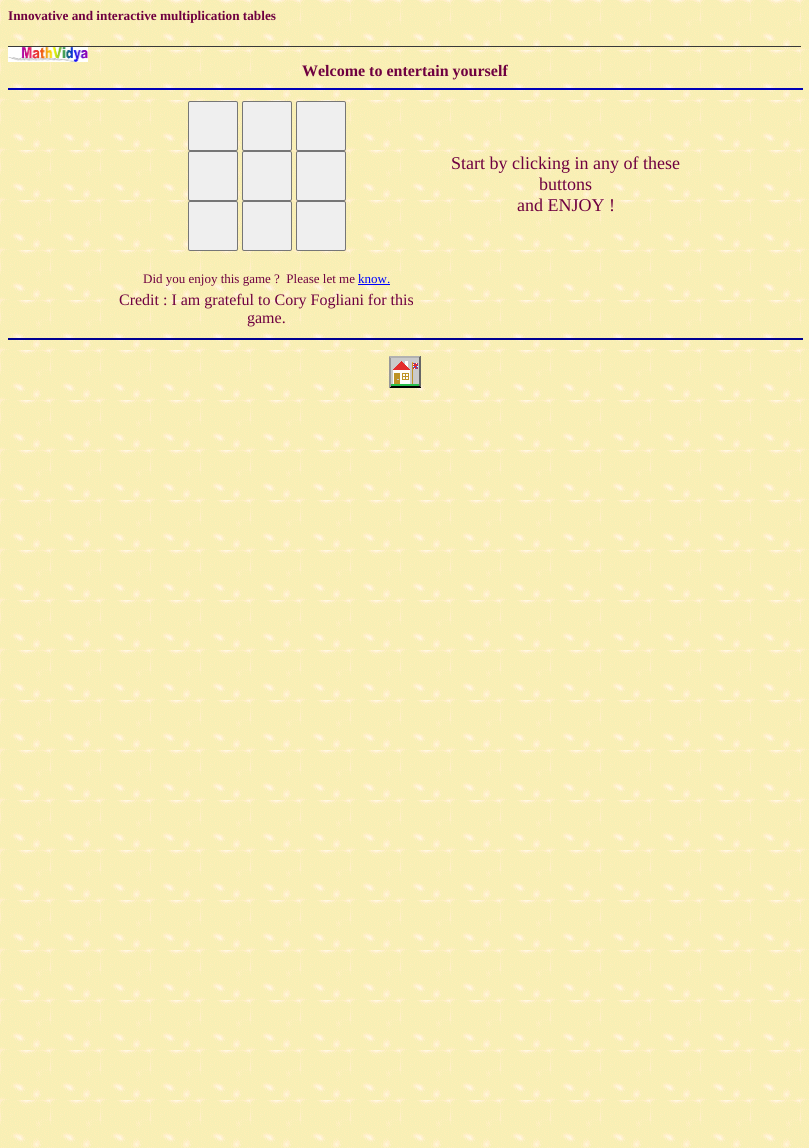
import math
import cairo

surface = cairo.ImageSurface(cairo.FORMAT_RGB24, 809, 1148)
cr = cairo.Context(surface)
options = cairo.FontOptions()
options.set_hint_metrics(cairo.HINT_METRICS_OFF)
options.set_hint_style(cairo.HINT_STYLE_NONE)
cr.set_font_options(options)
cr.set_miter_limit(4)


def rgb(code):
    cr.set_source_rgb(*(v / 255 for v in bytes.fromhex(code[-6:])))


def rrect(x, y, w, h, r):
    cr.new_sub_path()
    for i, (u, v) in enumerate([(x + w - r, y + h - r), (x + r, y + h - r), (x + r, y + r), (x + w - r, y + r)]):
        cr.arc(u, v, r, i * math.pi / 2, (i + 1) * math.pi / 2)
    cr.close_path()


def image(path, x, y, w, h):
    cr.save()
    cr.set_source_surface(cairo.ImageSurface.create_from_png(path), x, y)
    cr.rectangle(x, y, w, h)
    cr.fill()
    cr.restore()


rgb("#ffffff")
cr.paint()
image("img/1.png", 0, 0, 809, 1148)
rgb("#393939")
cr.rectangle(8, 46, 793, 1)
cr.fill()
image("img/2.png", 8, 47, 80, 15)
rgb("#0000b7")
cr.rectangle(8, 88, 795, 2)
cr.fill()
rgb("#efefef")
rrect(188.5, 101.5, 49, 49, 1.5)
cr.fill_preserve()
rgb("#767676")
cr.set_line_width(1)
cr.stroke()
rgb("#efefef")
rrect(242.5, 101.5, 49, 49, 1.5)
cr.fill_preserve()
rgb("#767676")
cr.stroke()
rgb("#efefef")
rrect(296.5, 101.5, 49, 49, 1.5)
cr.fill_preserve()
rgb("#767676")
cr.stroke()
rgb("#efefef")
rrect(188.5, 151.5, 49, 49, 1.5)
cr.fill_preserve()
rgb("#767676")
cr.stroke()
rgb("#efefef")
rrect(242.5, 151.5, 49, 49, 1.5)
cr.fill_preserve()
rgb("#767676")
cr.stroke()
rgb("#efefef")
rrect(296.5, 151.5, 49, 49, 1.5)
cr.fill_preserve()
rgb("#767676")
cr.stroke()
rgb("#efefef")
rrect(188.5, 201.5, 49, 49, 1.5)
cr.fill_preserve()
rgb("#767676")
cr.stroke()
rgb("#efefef")
rrect(242.5, 201.5, 49, 49, 1.5)
cr.fill_preserve()
rgb("#767676")
cr.stroke()
rgb("#efefef")
rrect(296.5, 201.5, 49, 49, 1.5)
cr.fill_preserve()
rgb("#767676")
cr.stroke()
rgb("#0000ff")
cr.rectangle(358, 284, 32, 1)
cr.fill()
rgb("#000091")
cr.rectangle(8, 338, 795, 2)
cr.fill()
image("img/3.png", 389, 356, 32, 32)
cr.select_font_face("Liberation Serif", cairo.FONT_SLANT_NORMAL, cairo.FONT_WEIGHT_BOLD)
cr.set_font_size(13.25)
rgb("#6f0040")
cr.move_to(8, 20)
cr.show_text("Innovative and interactive multiplication tables")
cr.set_font_size(16)
cr.move_to(302, 76)
cr.show_text("Welcome to entertain yourself")
cr.select_font_face("Liberation Serif")
cr.set_font_size(18)
for x, y, s in [
    (451, 169, "Start by clicking in any of these"),
    (539, 190, "buttons"),
    (517, 211, "and ENJOY !"),
]:
    cr.move_to(x, y)
    cr.show_text(s)
cr.set_font_size(13)
cr.move_to(143, 283)
cr.show_text("Did you enjoy this game ?  Please let me")
rgb("#0000ff")
cr.move_to(358, 283)
cr.show_text("know.")
cr.set_font_size(16)
rgb("#6f0040")
cr.move_to(119, 305)
cr.show_text("Credit : I am grateful to Cory Fogliani for this")
cr.move_to(247, 323)
cr.show_text("game.")
surface.write_to_png("page.png")
